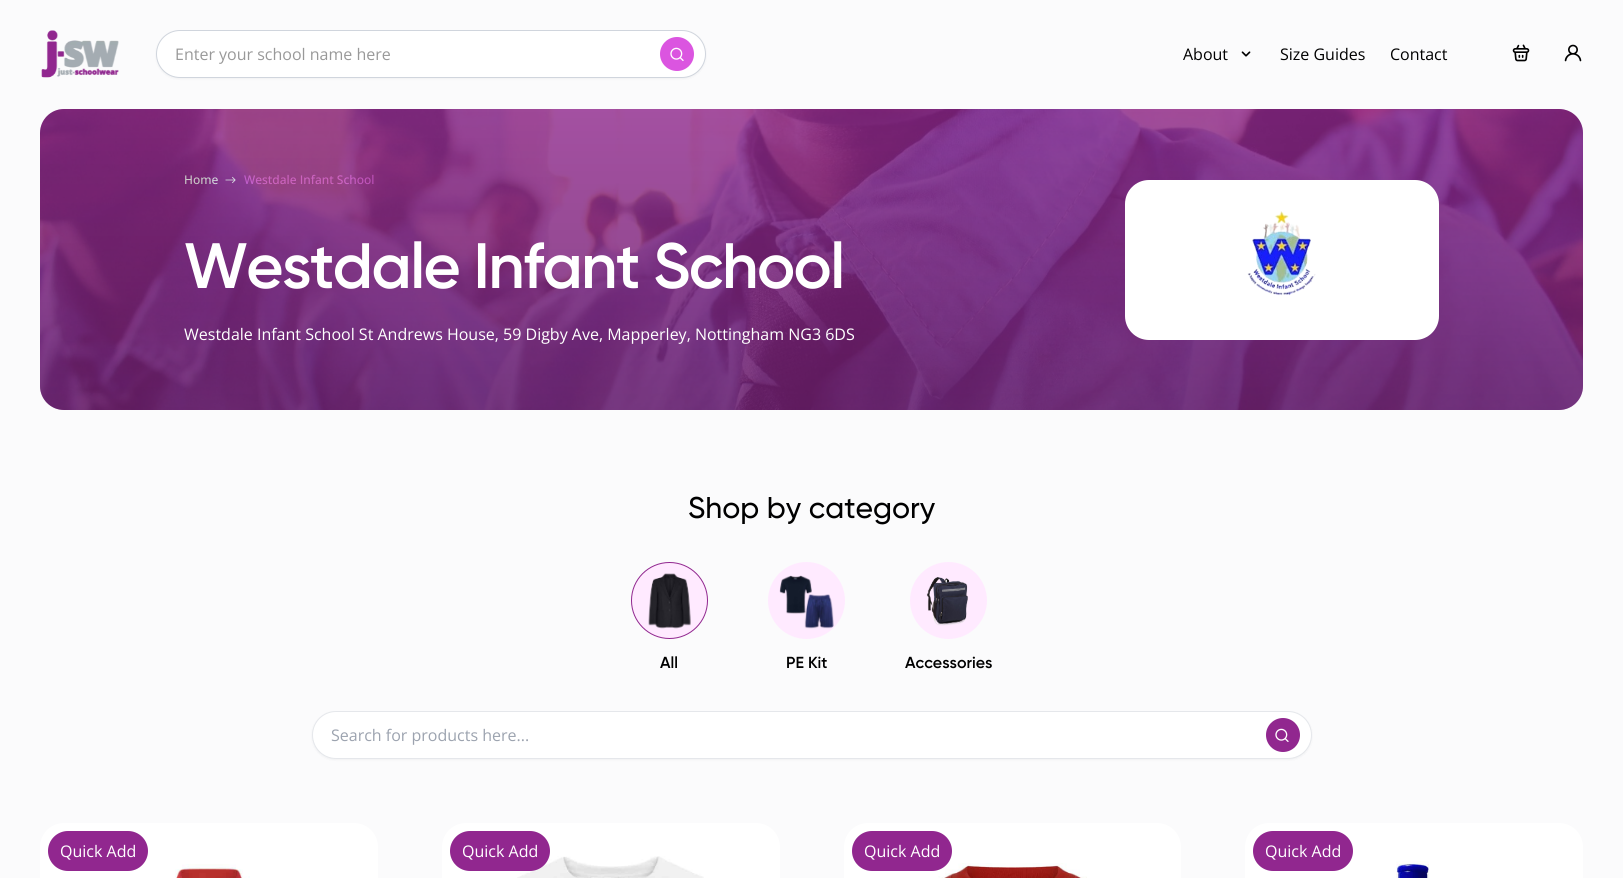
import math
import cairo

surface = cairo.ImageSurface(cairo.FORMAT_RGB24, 1623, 878)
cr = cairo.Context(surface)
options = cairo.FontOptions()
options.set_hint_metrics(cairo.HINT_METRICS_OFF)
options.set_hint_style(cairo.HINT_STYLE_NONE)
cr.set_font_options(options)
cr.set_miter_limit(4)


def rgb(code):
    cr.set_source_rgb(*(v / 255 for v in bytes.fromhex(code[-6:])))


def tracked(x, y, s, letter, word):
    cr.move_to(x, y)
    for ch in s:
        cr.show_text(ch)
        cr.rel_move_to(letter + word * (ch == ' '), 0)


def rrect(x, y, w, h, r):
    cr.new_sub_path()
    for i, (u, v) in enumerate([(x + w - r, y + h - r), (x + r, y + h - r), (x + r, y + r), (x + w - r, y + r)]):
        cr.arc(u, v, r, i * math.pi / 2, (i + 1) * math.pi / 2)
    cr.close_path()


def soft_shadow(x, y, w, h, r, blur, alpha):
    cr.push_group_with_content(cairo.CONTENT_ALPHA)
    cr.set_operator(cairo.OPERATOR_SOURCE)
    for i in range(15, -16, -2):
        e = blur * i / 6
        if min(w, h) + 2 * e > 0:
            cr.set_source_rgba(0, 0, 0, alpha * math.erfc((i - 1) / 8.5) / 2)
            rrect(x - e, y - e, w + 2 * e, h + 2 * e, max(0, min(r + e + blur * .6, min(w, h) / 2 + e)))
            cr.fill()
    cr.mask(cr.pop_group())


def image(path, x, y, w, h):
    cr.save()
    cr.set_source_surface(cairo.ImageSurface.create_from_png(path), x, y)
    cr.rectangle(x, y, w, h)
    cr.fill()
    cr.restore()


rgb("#fbfbfc")
cr.paint()
image("img/1.png", 41, 30, 78, 48)
rgb("#101828")
soft_shadow(156, 31, 550, 48, 24, 1, 0.05)
rgb("#ffffff")
rrect(156.5, 30.5, 549, 47, 23.5)
cr.fill_preserve()
rgb("#d0d5dd")
cr.set_line_width(1)
cr.stroke()
rgb("#db55e0")
cr.arc(677, 54, 17, 0, 2 * math.pi)
cr.fill()
image("img/2.png", 670, 47, 14, 14)
image("img/3.png", 1241, 51, 10, 6)
image("img/4.png", 1512, 44, 18, 18)
image("img/5.png", 1564, 44, 18, 18)
rgb("#91278f")
rrect(40, 109, 1543, 301, 24)
cr.fill()
image("img/7.png", 225, 176, 11, 8)
rgb("#ffeaff")
cr.arc(669.5, 600.5, 38, 0, 2 * math.pi)
cr.fill_preserve()
rgb("#91278f")
cr.stroke()
image("img/9.png", 648, 573, 43, 56)
rgb("#ffeaff")
cr.arc(806.5, 600.5, 38.5, 0, 2 * math.pi)
cr.fill()
image("img/10.png", 779, 575, 55, 54)
cr.arc(948.5, 600.5, 38.5, 0, 2 * math.pi)
cr.fill()
image("img/11.png", 926, 577, 42, 49)
rgb("#101828")
soft_shadow(312, 712, 1000, 48, 24, 1, 0.05)
rgb("#ffffff")
rrect(312.5, 711.5, 999, 47, 23.5)
cr.fill_preserve()
rgb("#e5e7eb")
cr.stroke()
rgb("#91278f")
cr.arc(1283, 735, 17, 0, 2 * math.pi)
cr.fill()
image("img/12.png", 1275, 728, 14, 14)
rgb("#ffffff")
rrect(40, 823, 338, 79, 24)
cr.fill()
rgb("#91278f")
rrect(48, 831, 100, 40, 20)
cr.fill()
image("img/13.png", 175, 864, 75, 14)
rgb("#ffffff")
rrect(442, 823, 338, 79, 24)
cr.fill()
image("img/14.png", 517, 856, 187, 22)
rgb("#91278f")
rrect(450, 831, 100, 40, 20)
cr.fill()
rgb("#ffffff")
rrect(844, 823, 337, 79, 24)
cr.fill()
image("img/15.png", 938, 863, 149, 15)
rgb("#91278f")
rrect(852, 831, 100, 40, 20)
cr.fill()
rgb("#ffffff")
rrect(1245, 823, 338, 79, 24)
cr.fill()
rgb("#91278f")
rrect(1253, 831, 100, 40, 20)
cr.fill()
image("img/16.png", 1396, 861, 33, 17)
cr.select_font_face("Open Sans")
cr.set_font_size(16)
rgb("#999999")
cr.move_to(175, 60)
cr.show_text("Enter your school name here")
rgb("#000000")
for x, y, s in [
    (1183, 60, "About"),
    (1280, 60, "Size Guides"),
    (1390, 60, "Contact"),
]:
    cr.move_to(x, y)
    cr.show_text(s)
cr.select_font_face("Open Sans Medium")
cr.set_font_size(12)
rgb("#ffffff")
cr.move_to(184, 184)
cr.show_text("Home")
rgb("#db55e0")
cr.move_to(244, 184)
cr.show_text("Westdale Infant School")
image("img/6.png", 40, 109, 1543, 301)
gradient = cairo.LinearGradient(812, 410, 812, 109)
gradient.add_color_stop_rgba(0, 0, 0, 0, 0.2)
gradient.add_color_stop_rgba(1, 0, 0, 0, 0.02)
cr.set_source(gradient)
rrect(40, 109, 1543, 301, 24)
cr.fill()
cr.select_font_face("Gilroy SemiBold")
cr.set_font_size(64)
rgb("#ffffff")
tracked(184, 288, "Westdale Infant School", -1.6, 0)
cr.select_font_face("Open Sans")
cr.set_font_size(16)
cr.move_to(184, 340)
cr.show_text("Westdale Infant School St Andrews House, 59 Digby Ave, Mapperley, Nottingham NG3 6DS")
rrect(1125, 180, 314, 160, 24)
cr.fill()
image("img/8.png", 1247, 211, 69, 85)
cr.select_font_face("Gilroy Medium")
cr.set_font_size(30)
rgb("#000000")
cr.move_to(688, 518)
cr.show_text("Shop by category")
cr.select_font_face("Gilroy SemiBold")
cr.set_font_size(16)
for x, y, s in [
    (660, 668, "All"),
    (786, 668, "PE Kit"),
    (905, 668, "Accessories"),
]:
    cr.move_to(x, y)
    cr.show_text(s)
cr.select_font_face("Open Sans")
rgb("#9ca3af")
cr.move_to(331, 741)
cr.show_text("Search for products here...")
rgb("#ffffff")
for x, y, s in [
    (60, 857, "Quick Add"),
    (462, 857, "Quick Add"),
    (864, 857, "Quick Add"),
    (1265, 857, "Quick Add"),
]:
    cr.move_to(x, y)
    cr.show_text(s)
surface.write_to_png("page.png")
